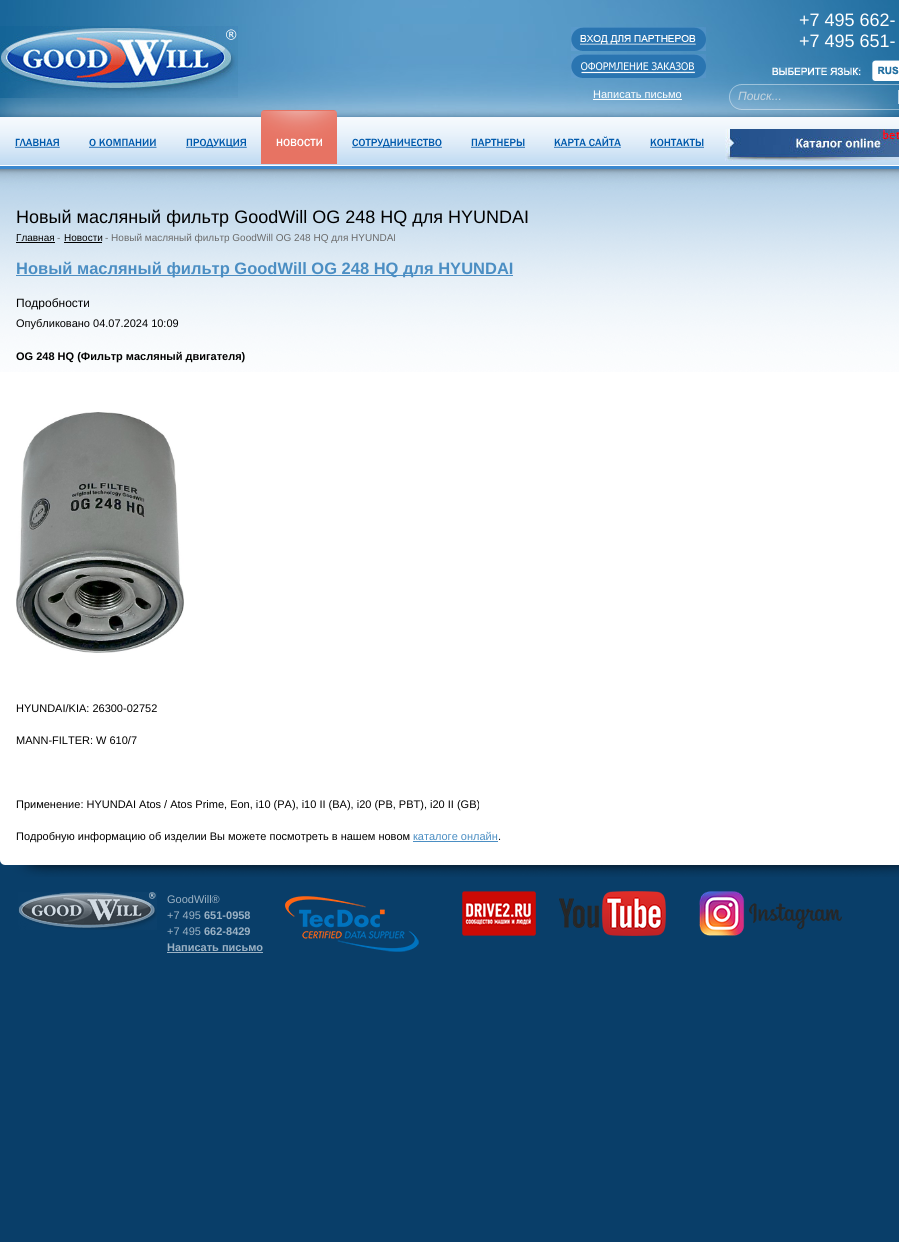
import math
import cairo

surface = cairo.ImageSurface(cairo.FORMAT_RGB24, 899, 1242)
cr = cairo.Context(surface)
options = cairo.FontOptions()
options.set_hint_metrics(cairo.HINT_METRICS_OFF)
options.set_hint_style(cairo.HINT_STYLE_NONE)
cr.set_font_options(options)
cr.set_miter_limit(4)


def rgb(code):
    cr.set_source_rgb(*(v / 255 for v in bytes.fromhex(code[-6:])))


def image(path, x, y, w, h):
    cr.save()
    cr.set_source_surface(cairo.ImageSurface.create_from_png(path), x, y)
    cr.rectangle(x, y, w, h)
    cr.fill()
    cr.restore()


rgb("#093e69")
cr.paint()
image("img/1.png", 0, 0, 899, 117)
image("img/2.png", 0, 26, 238, 72)
image("img/3.png", 571, 27, 135, 24)
image("img/4.png", 571, 54, 135, 24)
image("img/5.png", 772, 67, 89, 9)
image("img/6.png", 872, 60, 27, 21)
rgb("#ffffff")
cr.rectangle(593, 99, 89, 1)
cr.fill()
image("img/7.png", 729, 84, 170, 26)
image("img/9.png", 0, 117, 899, 52)
image("img/8.png", 725, 129, 174, 32)
image("img/10.png", 15, 138, 45, 10)
image("img/11.png", 89, 138, 68, 10)
image("img/12.png", 186, 138, 61, 10)
image("img/13.png", 261, 110, 76, 54)
image("img/14.png", 276, 138, 46, 9)
image("img/15.png", 352, 138, 90, 10)
image("img/16.png", 471, 138, 54, 10)
image("img/17.png", 554, 136, 67, 12)
image("img/18.png", 650, 138, 54, 10)
cr.rectangle(0, 372, 899, 488)
cr.fill()
image("img/19.png", 0, 169, 899, 203)
for x, y, w, h, color in [
    (16, 242, 39, 1, "#000000"),
    (64, 242, 38, 1, "#000000"),
    (16, 275, 497, 1, "#4b8ec3"),
]:
    rgb(color)
    cr.rectangle(x, y, w, h)
    cr.fill()
image("img/20.png", 16, 412, 168, 241)
cr.rectangle(413, 841, 85, 1)
cr.fill()
image("img/21.png", 0, 860, 899, 17)
image("img/22.png", 18, 892, 139, 38)
rgb("#9cb2c4")
cr.rectangle(167, 952, 96, 1)
cr.fill()
image("img/23.png", 285, 896, 134, 56)
image("img/24.png", 462, 891, 74, 45)
image("img/25.png", 559, 891, 107, 45)
image("img/26.png", 699, 891, 143, 45)
cr.select_font_face("Liberation Sans")
cr.set_font_size(18)
rgb("#ffffff")
cr.move_to(799, 26)
cr.show_text("+7 495 662-")
cr.move_to(799, 47)
cr.show_text("+7 495 651-")
cr.set_font_size(11)
cr.move_to(593, 98)
cr.show_text("Написать письмо")
cr.select_font_face("Liberation Sans", cairo.FONT_SLANT_ITALIC)
cr.set_font_size(12)
rgb("#c8d5df")
cr.move_to(738, 100)
cr.show_text("Поиск...")
cr.select_font_face("Liberation Sans")
cr.set_font_size(18)
rgb("#000000")
cr.move_to(16, 223)
cr.show_text("Новый масляный фильтр GoodWill OG 248 HQ для HYUNDAI")
cr.set_font_size(10)
cr.move_to(16, 241)
cr.show_text("Главная")
rgb("#6a6a6a")
cr.move_to(57, 241)
cr.show_text("-")
rgb("#000000")
cr.move_to(64, 241)
cr.show_text("Новости")
rgb("#6a6a6a")
cr.move_to(105, 241)
cr.show_text("- Новый масляный фильтр GoodWill OG 248 HQ для HYUNDAI")
cr.select_font_face("Liberation Sans", cairo.FONT_SLANT_NORMAL, cairo.FONT_WEIGHT_BOLD)
cr.set_font_size(16.5)
rgb("#4b8ec3")
cr.move_to(16, 274)
cr.show_text("Новый масляный фильтр GoodWill OG 248 HQ для HYUNDAI")
cr.select_font_face("Liberation Sans")
cr.set_font_size(12)
rgb("#000000")
cr.move_to(16, 307)
cr.show_text("Подробности")
cr.set_font_size(11)
cr.move_to(16, 327)
cr.show_text("Опубликовано 04.07.2024 10:09")
cr.select_font_face("Liberation Sans", cairo.FONT_SLANT_NORMAL, cairo.FONT_WEIGHT_BOLD)
cr.move_to(16, 360)
cr.show_text("OG 248 HQ (Фильтр масляный двигателя)")
cr.select_font_face("Liberation Sans")
for x, y, s in [
    (16, 712, "HYUNDAI/KIA: 26300-02752"),
    (16, 744, "MANN-FILTER: W 610/7"),
    (16, 808, "Применение: HYUNDAI Atos / Atos Prime, Eon, i10 (PA), i10 II (BA), i20 (PB, PBT), i20 II (GB)"),
    (16, 840, "Подробную информацию об изделии Вы можете посмотреть в нашем новом"),
]:
    cr.move_to(x, y)
    cr.show_text(s)
rgb("#4b8ec3")
cr.move_to(413, 840)
cr.show_text("каталоге онлайн")
rgb("#000000")
cr.move_to(498, 840)
cr.show_text(".")
rgb("#9cb2c4")
cr.move_to(167, 903)
cr.show_text("GoodWill®")
cr.move_to(167, 919)
cr.show_text("+7 495")
cr.select_font_face("Liberation Sans", cairo.FONT_SLANT_NORMAL, cairo.FONT_WEIGHT_BOLD)
cr.move_to(204, 919)
cr.show_text("651-0958")
cr.select_font_face("Liberation Sans")
cr.move_to(167, 935)
cr.show_text("+7 495")
cr.select_font_face("Liberation Sans", cairo.FONT_SLANT_NORMAL, cairo.FONT_WEIGHT_BOLD)
cr.move_to(204, 935)
cr.show_text("662-8429")
cr.move_to(167, 951)
cr.show_text("Написать письмо")
surface.write_to_png("page.png")
